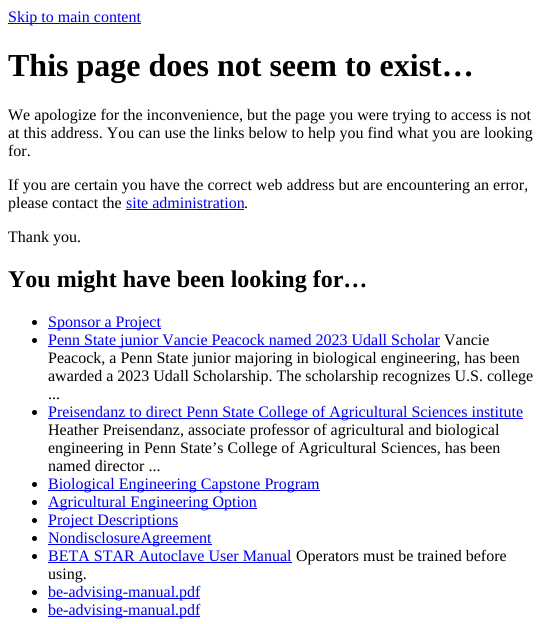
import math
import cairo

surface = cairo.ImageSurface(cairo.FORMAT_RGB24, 545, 624)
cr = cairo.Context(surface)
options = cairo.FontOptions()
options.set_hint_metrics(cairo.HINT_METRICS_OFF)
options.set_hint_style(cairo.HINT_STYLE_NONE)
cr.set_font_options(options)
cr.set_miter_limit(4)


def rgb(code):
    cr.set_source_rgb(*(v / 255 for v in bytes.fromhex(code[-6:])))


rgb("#ffffff")
cr.paint()
rgb("#0000ee")
cr.rectangle(8, 23, 133, 1)
cr.fill()
cr.rectangle(126, 209, 118, 1)
cr.fill()
rgb("#000000")
cr.arc(34.5, 322.5, 2.5, 0, 2 * math.pi)
cr.fill()
rgb("#0000ee")
cr.rectangle(48, 328, 113, 1)
cr.fill()
rgb("#000000")
cr.arc(34.5, 340.5, 2.5, 0, 2 * math.pi)
cr.fill()
rgb("#0000ee")
cr.rectangle(48, 346, 392, 1)
cr.fill()
rgb("#000000")
cr.arc(34.5, 412.5, 2.5, 0, 2 * math.pi)
cr.fill()
rgb("#0000ee")
cr.rectangle(48, 418, 475, 1)
cr.fill()
rgb("#000000")
cr.arc(34.5, 484.5, 2.5, 0, 2 * math.pi)
cr.fill()
rgb("#0000ee")
cr.rectangle(48, 490, 272, 1)
cr.fill()
rgb("#000000")
cr.arc(34.5, 502.5, 2.5, 0, 2 * math.pi)
cr.fill()
rgb("#0000ee")
cr.rectangle(48, 508, 209, 1)
cr.fill()
rgb("#000000")
cr.arc(34.5, 520.5, 2.5, 0, 2 * math.pi)
cr.fill()
rgb("#0000ee")
cr.rectangle(48, 526, 130, 1)
cr.fill()
rgb("#000000")
cr.arc(34.5, 538.5, 2.5, 0, 2 * math.pi)
cr.fill()
rgb("#0000ee")
cr.rectangle(48, 544, 164, 1)
cr.fill()
rgb("#000000")
cr.arc(34.5, 556.5, 2.5, 0, 2 * math.pi)
cr.fill()
rgb("#0000ee")
cr.rectangle(48, 562, 244, 1)
cr.fill()
rgb("#000000")
cr.arc(34.5, 592.5, 2.5, 0, 2 * math.pi)
cr.fill()
rgb("#0000ee")
cr.rectangle(48, 598, 152, 1)
cr.fill()
rgb("#000000")
cr.arc(34.5, 610.5, 2.5, 0, 2 * math.pi)
cr.fill()
rgb("#0000ee")
cr.rectangle(48, 616, 152, 1)
cr.fill()
cr.select_font_face("Liberation Serif")
cr.set_font_size(16)
cr.move_to(8, 22)
cr.show_text("Skip to main content")
cr.select_font_face("Liberation Serif", cairo.FONT_SLANT_NORMAL, cairo.FONT_WEIGHT_BOLD)
cr.set_font_size(32)
rgb("#000000")
cr.move_to(8, 76)
cr.show_text("This page does not seem to exist…")
cr.select_font_face("Liberation Serif")
cr.set_font_size(16)
for x, y, s in [
    (8, 120, "We apologize for the inconvenience, but the page you were trying to access is not"),
    (8, 138, "at this address. You can use the links below to help you find what you are looking"),
    (8, 156, "for."),
    (8, 190, "If you are certain you have the correct web address but are encountering an error,"),
    (8, 208, "please contact the"),
]:
    cr.move_to(x, y)
    cr.show_text(s)
rgb("#0000ee")
cr.move_to(126, 208)
cr.show_text("site administration")
rgb("#000000")
cr.move_to(244, 208)
cr.show_text(".")
cr.move_to(8, 242)
cr.show_text("Thank you.")
cr.select_font_face("Liberation Serif", cairo.FONT_SLANT_NORMAL, cairo.FONT_WEIGHT_BOLD)
cr.set_font_size(24)
cr.move_to(8, 287)
cr.show_text("You might have been looking for…")
cr.select_font_face("Liberation Serif")
cr.set_font_size(16)
rgb("#0000ee")
cr.move_to(48, 327)
cr.show_text("Sponsor a Project")
cr.move_to(48, 345)
cr.show_text("Penn State junior Vancie Peacock named 2023 Udall Scholar")
rgb("#000000")
for x, y, s in [
    (444, 345, "Vancie"),
    (48, 363, "Peacock, a Penn State junior majoring in biological engineering, has been"),
    (48, 381, "awarded a 2023 Udall Scholarship. The scholarship recognizes U.S. college"),
    (48, 399, "..."),
]:
    cr.move_to(x, y)
    cr.show_text(s)
rgb("#0000ee")
cr.move_to(48, 417)
cr.show_text("Preisendanz to direct Penn State College of Agricultural Sciences institute")
rgb("#000000")
for x, y, s in [
    (48, 435, "Heather Preisendanz, associate professor of agricultural and biological"),
    (48, 453, "engineering in Penn State’s College of Agricultural Sciences, has been"),
    (48, 471, "named director ..."),
]:
    cr.move_to(x, y)
    cr.show_text(s)
rgb("#0000ee")
for x, y, s in [
    (48, 489, "Biological Engineering Capstone Program"),
    (48, 507, "Agricultural Engineering Option"),
    (48, 525, "Project Descriptions"),
    (48, 543, "NondisclosureAgreement"),
    (48, 561, "BETA STAR Autoclave User Manual"),
]:
    cr.move_to(x, y)
    cr.show_text(s)
rgb("#000000")
cr.move_to(296, 561)
cr.show_text("Operators must be trained before")
cr.move_to(48, 579)
cr.show_text("using.")
rgb("#0000ee")
cr.move_to(48, 597)
cr.show_text("be-advising-manual.pdf")
cr.move_to(48, 615)
cr.show_text("be-advising-manual.pdf")
surface.write_to_png("page.png")
